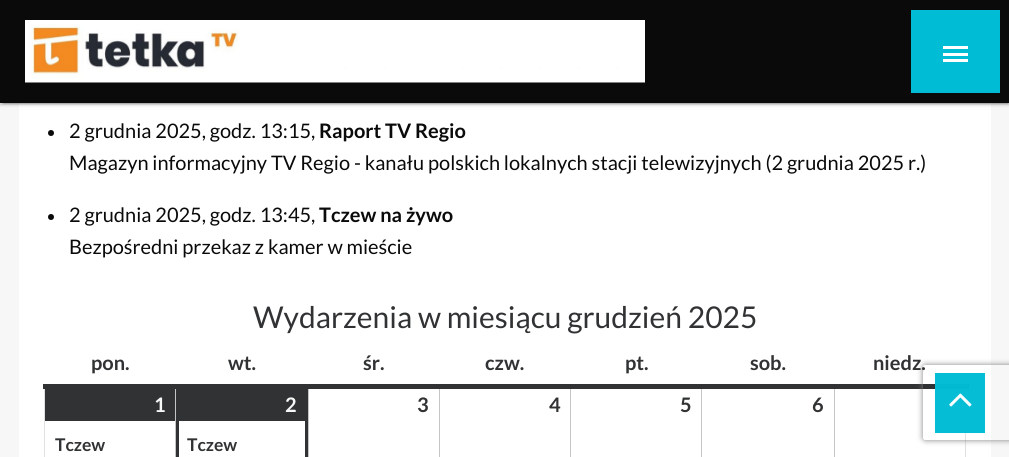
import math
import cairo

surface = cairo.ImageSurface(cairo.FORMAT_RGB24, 1009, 457)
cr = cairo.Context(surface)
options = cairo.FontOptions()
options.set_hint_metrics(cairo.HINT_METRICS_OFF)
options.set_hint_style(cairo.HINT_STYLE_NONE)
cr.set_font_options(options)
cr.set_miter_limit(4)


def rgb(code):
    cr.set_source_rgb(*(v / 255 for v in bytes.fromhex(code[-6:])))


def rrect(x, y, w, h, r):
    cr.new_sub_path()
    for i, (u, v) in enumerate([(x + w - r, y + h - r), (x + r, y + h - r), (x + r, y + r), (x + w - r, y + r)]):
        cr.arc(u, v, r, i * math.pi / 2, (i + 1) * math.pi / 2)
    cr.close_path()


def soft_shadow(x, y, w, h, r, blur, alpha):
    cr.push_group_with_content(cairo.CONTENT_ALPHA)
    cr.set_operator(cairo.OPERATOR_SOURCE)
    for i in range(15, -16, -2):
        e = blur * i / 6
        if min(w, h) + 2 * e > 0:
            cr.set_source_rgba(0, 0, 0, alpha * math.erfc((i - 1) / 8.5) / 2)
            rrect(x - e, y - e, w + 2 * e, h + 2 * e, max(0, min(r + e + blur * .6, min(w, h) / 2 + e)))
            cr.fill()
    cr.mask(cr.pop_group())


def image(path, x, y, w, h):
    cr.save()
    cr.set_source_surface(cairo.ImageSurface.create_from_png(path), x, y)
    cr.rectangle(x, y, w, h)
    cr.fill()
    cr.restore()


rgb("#f7f7f7")
cr.paint()
rgb("#ffffff")
cr.rectangle(19, 103, 972, 354)
cr.fill()
rgb("#000000")
soft_shadow(0, 1, 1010, 103, 0, 3, 0.12)
soft_shadow(3, 6, 1005, 98, 0, 0.5, 0.2)
soft_shadow(0, 3, 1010, 102, 0, 1, 0.14)
rgb("#0a0a0a")
cr.rectangle(0, 0, 1009, 103)
cr.fill()
image("img/1.png", 25, 20, 620, 63)
for x, y, w, h, color in [
    (911, 10, 89, 83, "#00bcd4"),
    (943, 46, 25, 3, "#ffffff"),
    (943, 53, 25, 3, "#ffffff"),
    (943, 59, 25, 3, "#ffffff"),
    (935, 373, 50, 60, "#05bdd5"),
    (44, 385, 1, 72, "#e0e0e0"),
    (175, 385, 1, 72, "#c5c5c5"),
    (308, 385, 1, 72, "#c5c5c5"),
    (439, 385, 1, 72, "#c5c5c5"),
    (570, 385, 1, 72, "#c5c5c5"),
    (701, 385, 1, 72, "#c5c5c5"),
    (834, 385, 1, 72, "#c5c5c5"),
    (965, 433, 1, 24, "#e0e0e0"),
]:
    rgb(color)
    cr.rectangle(x, y, w, h)
    cr.fill()
rgb("#0a0a0a")
cr.arc(51, 133, 3, 0, 2 * math.pi)
cr.fill()
cr.arc(51, 217, 3, 0, 2 * math.pi)
cr.fill()
for x, y, w, h, color in [
    (43, 384, 892, 5, "#313233"),
    (935, 384, 34, 5, "#01b9d1"),
    (45, 389, 130, 32, "#313233"),
    (179, 389, 126, 32, "#313233"),
]:
    rgb(color)
    cr.rectangle(x, y, w, h)
    cr.fill()
cr.rectangle(177.5, 387.5, 129, 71)
cr.set_line_width(3)
cr.stroke()
cr.save()
cr.set_fill_rule(cairo.FILL_RULE_EVEN_ODD)
cr.new_path()
cr.move_to(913, 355)
cr.line_to(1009, 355)
cr.line_to(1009, 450)
cr.line_to(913, 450)
cr.close_path()
cr.move_to(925.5, 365)
cr.line_to(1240.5, 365)
cr.curve_to(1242, 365, 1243, 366, 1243, 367.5)
cr.line_to(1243, 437.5)
cr.curve_to(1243, 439, 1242, 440, 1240.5, 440)
cr.line_to(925.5, 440)
cr.curve_to(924, 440, 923, 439, 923, 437.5)
cr.line_to(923, 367.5)
cr.curve_to(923, 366, 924, 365, 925.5, 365)
cr.close_path()
cr.clip()
rgb("#808080")
soft_shadow(923, 365, 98, 75, 2.5, 3, 1)
cr.restore()
image("img/2.png", 949, 393, 23, 14)
cr.select_font_face("Lato")
cr.set_font_size(20)
rgb("#0a0a0a")
cr.move_to(69, 138)
cr.show_text("2 grudnia 2025, godz. 13:15,")
cr.select_font_face("Lato", cairo.FONT_SLANT_NORMAL, cairo.FONT_WEIGHT_BOLD)
cr.move_to(319, 138)
cr.show_text("Raport TV Regio")
cr.select_font_face("Lato")
cr.move_to(69, 170)
cr.show_text("Magazyn informacyjny TV Regio - kanału polskich lokalnych stacji telewizyjnych (2 grudnia 2025 r.)")
cr.move_to(69, 222)
cr.show_text("2 grudnia 2025, godz. 13:45,")
cr.select_font_face("Lato", cairo.FONT_SLANT_NORMAL, cairo.FONT_WEIGHT_BOLD)
cr.move_to(319, 222)
cr.show_text("Tczew na żywo")
cr.select_font_face("Lato")
cr.move_to(69, 254)
cr.show_text("Bezpośredni przekaz z kamer w mieście")
cr.set_font_size(30)
rgb("#313233")
cr.move_to(253, 328)
cr.show_text("Wydarzenia w miesiącu grudzień 2025")
cr.select_font_face("Lato", cairo.FONT_SLANT_NORMAL, cairo.FONT_WEIGHT_BOLD)
cr.set_font_size(20)
for x, y, s in [
    (91, 370, "pon."),
    (228, 370, "wt."),
    (363, 370, "śr."),
    (485, 370, "czw."),
    (625, 370, "pt."),
    (750, 370, "sob."),
    (873, 370, "niedz."),
]:
    cr.move_to(x, y)
    cr.show_text(s)
rgb("#f6f7f7")
cr.move_to(154, 412)
cr.show_text("1")
cr.set_font_size(17.5)
rgb("#313233")
cr.move_to(55, 451)
cr.show_text("Tczew")
cr.set_font_size(20)
rgb("#f6f7f7")
cr.move_to(285, 412)
cr.show_text("2")
cr.set_font_size(17.5)
rgb("#313233")
cr.move_to(187, 451)
cr.show_text("Tczew")
cr.set_font_size(20)
for x, y, s in [
    (417, 412, "3"),
    (549, 412, "4"),
    (680, 412, "5"),
    (812, 412, "6"),
]:
    cr.move_to(x, y)
    cr.show_text(s)
surface.write_to_png("page.png")
